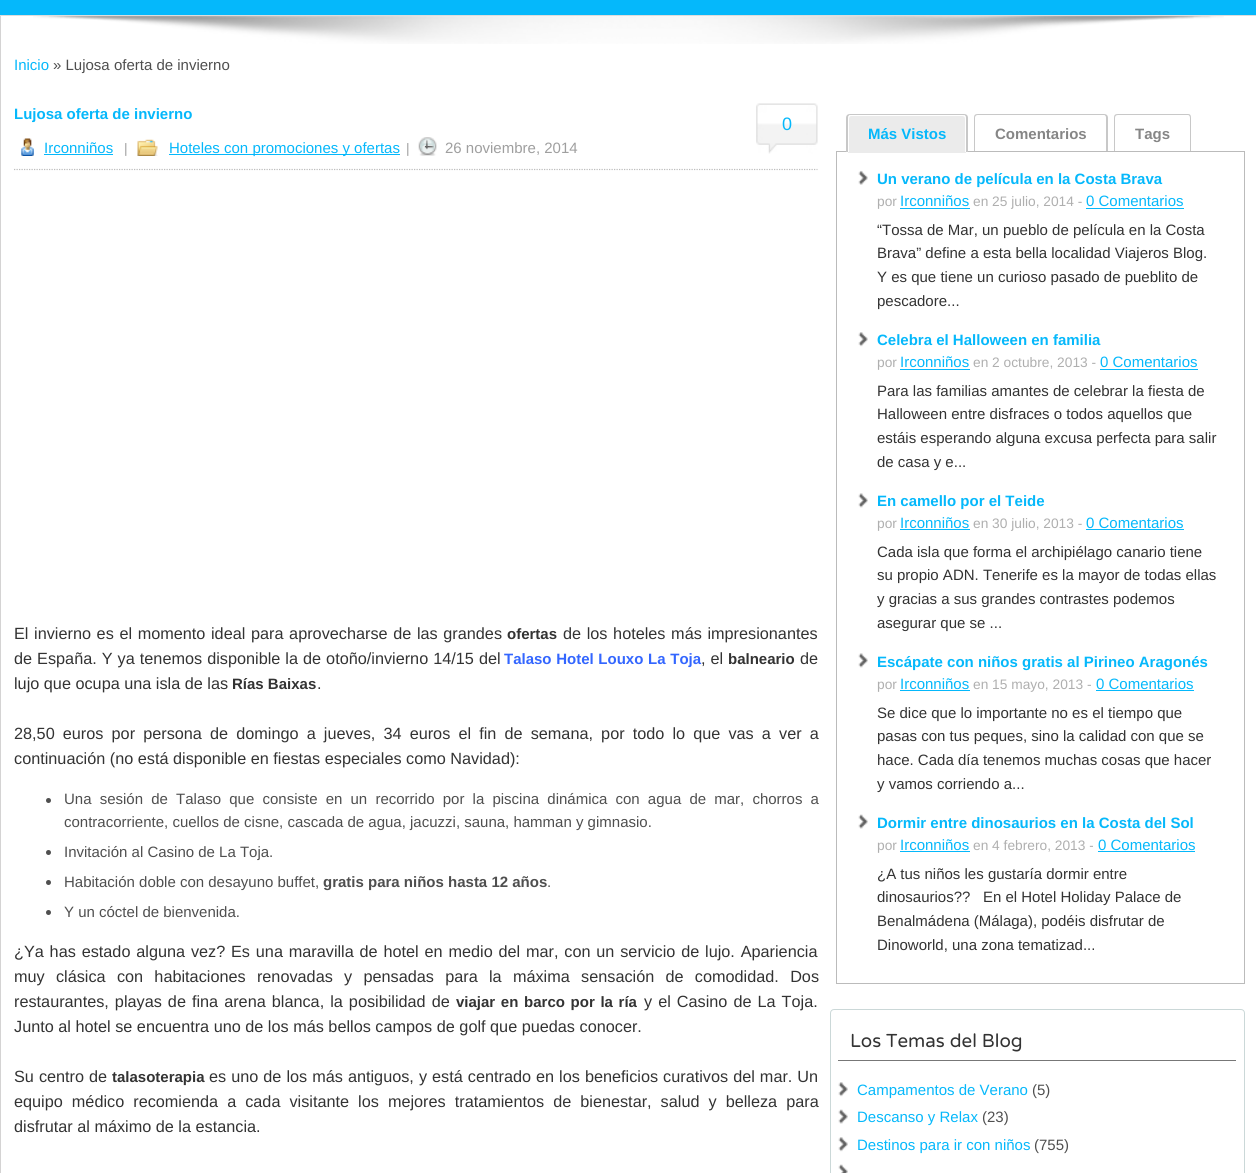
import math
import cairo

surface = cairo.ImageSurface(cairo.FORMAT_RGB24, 1256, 1173)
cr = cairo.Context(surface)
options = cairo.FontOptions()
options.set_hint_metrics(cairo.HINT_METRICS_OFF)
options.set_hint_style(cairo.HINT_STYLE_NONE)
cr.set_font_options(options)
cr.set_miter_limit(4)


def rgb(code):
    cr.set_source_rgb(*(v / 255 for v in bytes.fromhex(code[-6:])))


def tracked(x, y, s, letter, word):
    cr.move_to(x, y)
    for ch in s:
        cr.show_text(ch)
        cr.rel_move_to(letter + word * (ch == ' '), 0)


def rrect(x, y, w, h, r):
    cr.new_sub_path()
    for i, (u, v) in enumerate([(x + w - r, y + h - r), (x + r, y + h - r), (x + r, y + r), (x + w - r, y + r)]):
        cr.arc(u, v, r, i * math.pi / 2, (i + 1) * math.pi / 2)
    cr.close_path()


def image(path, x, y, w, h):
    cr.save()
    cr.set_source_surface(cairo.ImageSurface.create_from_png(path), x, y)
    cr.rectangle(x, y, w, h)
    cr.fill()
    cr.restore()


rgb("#05b8fb")
cr.paint()
for x, y, w, h, color in [
    (0, 16, 1256, 2, "#ffffff"),
    (0, 15, 1, 1158, "#d4d3d3"),
    (1, 18, 1255, 1155, "#ffffff"),
]:
    rgb(color)
    cr.rectangle(x, y, w, h)
    cr.fill()
image("img/1.png", 33, 16, 1191, 28)
rgb("#dddddd")
cr.rectangle(0, 15, 1256, 1)
cr.fill()
image("img/2.png", 756, 103, 62, 51)
cr.new_path()
cr.move_to(14, 169.5)
cr.line_to(817.5, 169.5)
rgb("#bdbdbd")
cr.set_line_width(1.2)
cr.set_dash([1.25, 1.25])
cr.stroke()
image("img/3.png", 21, 138, 13, 18)
rgb("#05b8fb")
cr.rectangle(44, 154, 69, 1)
cr.fill()
image("img/4.png", 137, 139, 21, 17)
cr.rectangle(169, 154, 231, 1)
cr.fill()
image("img/5.png", 418, 137, 19, 19)
rgb("#4f4f4f")
cr.arc(48.5, 800.5, 2.5, 0, 2 * math.pi)
cr.fill()
cr.arc(48.5, 852.5, 2.5, 0, 2 * math.pi)
cr.fill()
cr.arc(48.5, 882.5, 2.5, 0, 2 * math.pi)
cr.fill()
cr.arc(48.5, 912.5, 2.5, 0, 2 * math.pi)
cr.fill()
cr.rectangle(836.5, 151.5, 408, 832)
rgb("#bbbbbb")
cr.set_line_width(1)
cr.set_dash([])
cr.stroke()
rgb("#c8c8c8")
cr.set_fill_rule(cairo.FILL_RULE_EVEN_ODD)
cr.new_path()
cr.move_to(850, 114)
cr.line_to(964, 114)
cr.curve_to(966, 114, 968, 115, 968, 118)
cr.line_to(968, 152)
cr.line_to(846, 152)
cr.line_to(846, 118)
cr.curve_to(846, 115, 848, 114, 850, 114)
cr.close_path()
cr.move_to(850, 115)
cr.line_to(964, 115)
cr.curve_to(965, 115, 966, 116, 966, 118)
cr.line_to(966, 152)
cr.line_to(848, 152)
cr.line_to(848, 118)
cr.curve_to(848, 116, 849, 115, 850, 115)
cr.close_path()
cr.fill()
rgb("#ebebeb")
cr.new_path()
cr.move_to(852, 115)
cr.line_to(962, 115)
cr.curve_to(964, 115, 966, 117, 966, 119)
cr.line_to(966, 153)
cr.line_to(848, 153)
cr.line_to(848, 119)
cr.curve_to(848, 117, 850, 115, 852, 115)
cr.close_path()
cr.fill()
rgb("#ffffff")
cr.new_path()
cr.move_to(851, 115)
cr.line_to(962, 115)
cr.curve_to(965, 115, 966, 117, 966, 119)
cr.line_to(966, 152)
cr.line_to(848, 152)
cr.line_to(848, 119)
cr.curve_to(848, 117, 849, 115, 851, 115)
cr.close_path()
cr.move_to(851, 116)
cr.line_to(962, 116)
cr.curve_to(964, 116, 965, 117, 965, 119)
cr.line_to(965, 152)
cr.line_to(849, 152)
cr.line_to(849, 119)
cr.curve_to(849, 117, 850, 116, 851, 116)
cr.close_path()
cr.fill()
rgb("#c8c8c8")
cr.new_path()
cr.move_to(978, 114)
cr.line_to(1104, 114)
cr.curve_to(1106, 114, 1108, 115, 1108, 118)
cr.line_to(1108, 151)
cr.line_to(974, 151)
cr.line_to(974, 118)
cr.curve_to(974, 115, 975, 114, 978, 114)
cr.close_path()
cr.move_to(978, 115)
cr.line_to(1104, 115)
cr.curve_to(1105, 115, 1106, 116, 1106, 118)
cr.line_to(1106, 151)
cr.line_to(975, 151)
cr.line_to(975, 118)
cr.curve_to(975, 116, 976, 115, 978, 115)
cr.close_path()
cr.fill()
rgb("#ffffff")
cr.new_path()
cr.move_to(979, 115)
cr.line_to(1102, 115)
cr.curve_to(1105, 115, 1106, 117, 1106, 119)
cr.line_to(1106, 151)
cr.line_to(975, 151)
cr.line_to(975, 119)
cr.curve_to(975, 117, 977, 115, 979, 115)
cr.close_path()
cr.move_to(979, 116)
cr.line_to(1102, 116)
cr.curve_to(1104, 116, 1105, 117, 1105, 119)
cr.line_to(1105, 151)
cr.line_to(976, 151)
cr.line_to(976, 119)
cr.curve_to(976, 117, 977, 116, 979, 116)
cr.close_path()
cr.fill()
rgb("#c8c8c8")
cr.new_path()
cr.move_to(1118, 114)
cr.line_to(1188, 114)
cr.curve_to(1190, 114, 1191, 115, 1191, 118)
cr.line_to(1191, 151)
cr.line_to(1114, 151)
cr.line_to(1114, 118)
cr.curve_to(1114, 115, 1115, 114, 1118, 114)
cr.close_path()
cr.move_to(1118, 115)
cr.line_to(1188, 115)
cr.curve_to(1189, 115, 1190, 116, 1190, 118)
cr.line_to(1190, 151)
cr.line_to(1115, 151)
cr.line_to(1115, 118)
cr.curve_to(1115, 116, 1116, 115, 1118, 115)
cr.close_path()
cr.fill()
image("img/6.png", 858, 170, 10, 15)
rgb("#05b8fb")
cr.rectangle(900, 208, 70, 1)
cr.fill()
cr.rectangle(1086, 208, 98, 1)
cr.fill()
image("img/7.png", 858, 332, 10, 15)
cr.rectangle(900, 369, 70, 1)
cr.fill()
cr.rectangle(1100, 369, 98, 1)
cr.fill()
image("img/8.png", 858, 493, 10, 15)
cr.rectangle(900, 529, 70, 1)
cr.fill()
cr.rectangle(1086, 529, 98, 1)
cr.fill()
image("img/8.png", 858, 653, 10, 15)
cr.rectangle(900, 690, 70, 1)
cr.fill()
cr.rectangle(1096, 690, 98, 1)
cr.fill()
image("img/9.png", 858, 814, 10, 15)
cr.rectangle(900, 851, 70, 1)
cr.fill()
cr.rectangle(1098, 851, 97, 1)
cr.fill()
rrect(830.5, 1009.5, 414, 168, 3.5)
rgb("#cbd8d8")
cr.stroke()
rgb("#777777")
cr.rectangle(838, 1060, 398, 1)
cr.fill()
image("img/10.png", 838, 1082, 10, 15)
image("img/11.png", 838, 1109, 10, 15)
image("img/10.png", 838, 1137, 10, 15)
image("img/12.png", 838, 1164, 10, 9)
cr.select_font_face("Liberation Sans")
cr.set_font_size(15)
rgb("#05b8fb")
cr.move_to(14, 70)
cr.show_text("Inicio")
rgb("#4f4f4f")
cr.move_to(53, 70)
cr.show_text("» Lujosa oferta de invierno")
cr.select_font_face("Liberation Sans", cairo.FONT_SLANT_NORMAL, cairo.FONT_WEIGHT_BOLD)
rgb("#05b8fb")
cr.move_to(14, 119)
cr.show_text("Lujosa oferta de invierno")
cr.select_font_face("Liberation Sans")
cr.set_font_size(18)
cr.move_to(782, 130)
cr.show_text("0")
cr.set_font_size(15)
cr.move_to(44, 153)
cr.show_text("Irconniños")
cr.set_font_size(13.75)
rgb("#9f9f9f")
cr.move_to(124, 153)
cr.show_text("|")
cr.set_font_size(15)
rgb("#05b8fb")
cr.move_to(169, 153)
cr.show_text("Hoteles con promociones y ofertas")
cr.set_font_size(13.75)
rgb("#9f9f9f")
cr.move_to(406, 153)
cr.show_text("|")
cr.set_font_size(15)
cr.move_to(445, 153)
cr.show_text("26 noviembre, 2014")
cr.set_font_size(16.25)
rgb("#333333")
tracked(14, 639, "El invierno es el momento ideal para aprovecharse de las grandes", 0, 1.1)
cr.select_font_face("Liberation Sans", cairo.FONT_SLANT_NORMAL, cairo.FONT_WEIGHT_BOLD)
cr.set_font_size(15)
cr.move_to(507, 639)
cr.show_text("ofertas")
cr.select_font_face("Liberation Sans")
cr.set_font_size(16.25)
tracked(563, 639, "de los hoteles más impresionantes", 0, 1.1)
tracked(14, 664, "de España. Y ya tenemos disponible la de otoño/invierno 14/15 del", 0, 0.5)
cr.select_font_face("Liberation Sans", cairo.FONT_SLANT_NORMAL, cairo.FONT_WEIGHT_BOLD)
cr.set_font_size(15)
rgb("#3366ff")
tracked(504, 664, "Talaso Hotel Louxo La Toja", 0, 0.5)
cr.select_font_face("Liberation Sans")
cr.set_font_size(16.25)
rgb("#333333")
tracked(701, 664, ", el", 0, 0.5)
cr.select_font_face("Liberation Sans", cairo.FONT_SLANT_NORMAL, cairo.FONT_WEIGHT_BOLD)
cr.set_font_size(15)
cr.move_to(728, 664)
cr.show_text("balneario")
cr.select_font_face("Liberation Sans")
cr.set_font_size(16.25)
cr.move_to(800, 664)
cr.show_text("de")
cr.move_to(14, 689)
cr.show_text("lujo que ocupa una isla de las")
cr.select_font_face("Liberation Sans", cairo.FONT_SLANT_NORMAL, cairo.FONT_WEIGHT_BOLD)
cr.set_font_size(15)
cr.move_to(232, 689)
cr.show_text("Rías Baixas")
cr.select_font_face("Liberation Sans")
cr.set_font_size(16.25)
cr.move_to(317, 689)
cr.show_text(".")
tracked(14, 739, "28,50 euros por persona de domingo a jueves, 34 euros el fin de semana, por todo lo que vas a ver a", 0, 3.6)
cr.move_to(14, 764)
cr.show_text("continuación (no está disponible en fiestas especiales como Navidad):")
cr.set_font_size(15)
rgb("#4f4f4f")
tracked(64, 804, "Una sesión de Talaso que consiste en un recorrido por la piscina dinámica con agua de mar, chorros a", 0, 4)
for x, y, s in [
    (64, 827, "contracorriente, cuellos de cisne, cascada de agua, jacuzzi, sauna, hamman y gimnasio."),
    (64, 857, "Invitación al Casino de La Toja."),
    (64, 887, "Habitación doble con desayuno buffet,"),
]:
    cr.move_to(x, y)
    cr.show_text(s)
cr.select_font_face("Liberation Sans", cairo.FONT_SLANT_NORMAL, cairo.FONT_WEIGHT_BOLD)
cr.move_to(323, 887)
cr.show_text("gratis para niños hasta 12 años")
cr.select_font_face("Liberation Sans")
cr.move_to(547, 887)
cr.show_text(".")
cr.move_to(64, 917)
cr.show_text("Y un cóctel de bienvenida.")
cr.set_font_size(16.25)
rgb("#333333")
tracked(14, 957, "¿Ya has estado alguna vez? Es una maravilla de hotel en medio del mar, con un servicio de lujo. Apariencia", 0, 1.3)
tracked(14, 982, "muy clásica con habitaciones renovadas y pensadas para la máxima sensación de comodidad. Dos", 0, 6.75)
tracked(14, 1007, "restaurantes, playas de fina arena blanca, la posibilidad de", 0, 1.5)
cr.select_font_face("Liberation Sans", cairo.FONT_SLANT_NORMAL, cairo.FONT_WEIGHT_BOLD)
cr.set_font_size(15)
tracked(456, 1007, "viajar en barco por la ría", 0, 1.5)
cr.select_font_face("Liberation Sans")
cr.set_font_size(16.25)
tracked(644, 1007, "y el Casino de La Toja.", 0, 1.5)
cr.move_to(14, 1032)
cr.show_text("Junto al hotel se encuentra uno de los más bellos campos de golf que puedas conocer.")
tracked(14, 1082, "Su centro de", 0, 0.5)
cr.select_font_face("Liberation Sans", cairo.FONT_SLANT_NORMAL, cairo.FONT_WEIGHT_BOLD)
cr.set_font_size(15)
cr.move_to(112, 1082)
cr.show_text("talasoterapia")
cr.select_font_face("Liberation Sans")
cr.set_font_size(16.25)
tracked(209, 1082, "es uno de los más antiguos, y está centrado en los beneficios curativos del mar. Un", 0, 0.5)
tracked(14, 1107, "equipo médico recomienda a cada visitante los mejores tratamientos de bienestar, salud y belleza para", 0, 4.5)
cr.move_to(14, 1132)
cr.show_text("disfrutar al máximo de la estancia.")
cr.select_font_face("Liberation Sans", cairo.FONT_SLANT_NORMAL, cairo.FONT_WEIGHT_BOLD)
cr.set_font_size(15)
rgb("#05b8fb")
cr.move_to(868, 139)
cr.show_text("Más Vistos")
rgb("#868686")
cr.move_to(995, 139)
cr.show_text("Comentarios")
cr.move_to(1135, 139)
cr.show_text("Tags")
rgb("#05b8fb")
cr.move_to(877, 184)
cr.show_text("Un verano de película en la Costa Brava")
cr.select_font_face("Liberation Sans")
cr.set_font_size(13.75)
rgb("#afafaf")
cr.move_to(877, 206)
cr.show_text("por")
cr.set_font_size(15)
rgb("#05b8fb")
cr.move_to(900, 206)
cr.show_text("Irconniños")
cr.set_font_size(13.75)
rgb("#afafaf")
cr.move_to(973, 206)
cr.show_text("en 25 julio, 2014 -")
cr.set_font_size(15)
rgb("#05b8fb")
cr.move_to(1086, 206)
cr.show_text("0 Comentarios")
rgb("#333333")
for x, y, s in [
    (877, 235, "“Tossa de Mar, un pueblo de película en la Costa"),
    (877, 258, "Brava” define a esta bella localidad Viajeros Blog."),
    (877, 282, "Y es que tiene un curioso pasado de pueblito de"),
    (877, 306, "pescadore..."),
]:
    cr.move_to(x, y)
    cr.show_text(s)
cr.select_font_face("Liberation Sans", cairo.FONT_SLANT_NORMAL, cairo.FONT_WEIGHT_BOLD)
rgb("#05b8fb")
cr.move_to(877, 345)
cr.show_text("Celebra el Halloween en familia")
cr.select_font_face("Liberation Sans")
cr.set_font_size(13.75)
rgb("#afafaf")
cr.move_to(877, 367)
cr.show_text("por")
cr.set_font_size(15)
rgb("#05b8fb")
cr.move_to(900, 367)
cr.show_text("Irconniños")
cr.set_font_size(13.75)
rgb("#afafaf")
cr.move_to(973, 367)
cr.show_text("en 2 octubre, 2013 -")
cr.set_font_size(15)
rgb("#05b8fb")
cr.move_to(1100, 367)
cr.show_text("0 Comentarios")
rgb("#333333")
for x, y, s in [
    (877, 396, "Para las familias amantes de celebrar la fiesta de"),
    (877, 419, "Halloween entre disfraces o todos aquellos que"),
    (877, 443, "estáis esperando alguna excusa perfecta para salir"),
    (877, 467, "de casa y e..."),
]:
    cr.move_to(x, y)
    cr.show_text(s)
cr.select_font_face("Liberation Sans", cairo.FONT_SLANT_NORMAL, cairo.FONT_WEIGHT_BOLD)
rgb("#05b8fb")
cr.move_to(877, 506)
cr.show_text("En camello por el Teide")
cr.select_font_face("Liberation Sans")
cr.set_font_size(13.75)
rgb("#afafaf")
cr.move_to(877, 528)
cr.show_text("por")
cr.set_font_size(15)
rgb("#05b8fb")
cr.move_to(900, 528)
cr.show_text("Irconniños")
cr.set_font_size(13.75)
rgb("#afafaf")
cr.move_to(973, 528)
cr.show_text("en 30 julio, 2013 -")
cr.set_font_size(15)
rgb("#05b8fb")
cr.move_to(1086, 528)
cr.show_text("0 Comentarios")
rgb("#333333")
for x, y, s in [
    (877, 557, "Cada isla que forma el archipiélago canario tiene"),
    (877, 580, "su propio ADN. Tenerife es la mayor de todas ellas"),
    (877, 604, "y gracias a sus grandes contrastes podemos"),
    (877, 628, "asegurar que se ..."),
]:
    cr.move_to(x, y)
    cr.show_text(s)
cr.select_font_face("Liberation Sans", cairo.FONT_SLANT_NORMAL, cairo.FONT_WEIGHT_BOLD)
rgb("#05b8fb")
cr.move_to(877, 667)
cr.show_text("Escápate con niños gratis al Pirineo Aragonés")
cr.select_font_face("Liberation Sans")
cr.set_font_size(13.75)
rgb("#afafaf")
cr.move_to(877, 689)
cr.show_text("por")
cr.set_font_size(15)
rgb("#05b8fb")
cr.move_to(900, 689)
cr.show_text("Irconniños")
cr.set_font_size(13.75)
rgb("#afafaf")
cr.move_to(973, 689)
cr.show_text("en 15 mayo, 2013 -")
cr.set_font_size(15)
rgb("#05b8fb")
cr.move_to(1096, 689)
cr.show_text("0 Comentarios")
rgb("#333333")
for x, y, s in [
    (877, 718, "Se dice que lo importante no es el tiempo que"),
    (877, 741, "pasas con tus peques, sino la calidad con que se"),
    (877, 765, "hace. Cada día tenemos muchas cosas que hacer"),
    (877, 789, "y vamos corriendo a..."),
]:
    cr.move_to(x, y)
    cr.show_text(s)
cr.select_font_face("Liberation Sans", cairo.FONT_SLANT_NORMAL, cairo.FONT_WEIGHT_BOLD)
rgb("#05b8fb")
cr.move_to(877, 828)
cr.show_text("Dormir entre dinosaurios en la Costa del Sol")
cr.select_font_face("Liberation Sans")
cr.set_font_size(13.75)
rgb("#afafaf")
cr.move_to(877, 850)
cr.show_text("por")
cr.set_font_size(15)
rgb("#05b8fb")
cr.move_to(900, 850)
cr.show_text("Irconniños")
cr.set_font_size(13.75)
rgb("#afafaf")
cr.move_to(973, 850)
cr.show_text("en 4 febrero, 2013 -")
cr.set_font_size(15)
rgb("#05b8fb")
cr.move_to(1098, 850)
cr.show_text("0 Comentarios")
rgb("#333333")
for x, y, s in [
    (877, 879, "¿A tus niños les gustaría dormir entre"),
    (877, 902, "dinosaurios??   En el Hotel Holiday Palace de"),
    (877, 926, "Benalmádena (Málaga), podéis disfrutar de"),
    (877, 950, "Dinoworld, una zona tematizad..."),
]:
    cr.move_to(x, y)
    cr.show_text(s)
cr.select_font_face("Varela Round")
cr.set_font_size(18.75)
cr.move_to(850, 1047)
cr.show_text("Los Temas del Blog")
cr.select_font_face("Liberation Sans")
cr.set_font_size(15)
rgb("#05b8fb")
cr.move_to(857, 1095)
cr.show_text("Campamentos de Verano")
rgb("#4f4f4f")
cr.move_to(1032, 1095)
cr.show_text("(5)")
rgb("#05b8fb")
cr.move_to(857, 1122)
cr.show_text("Descanso y Relax")
rgb("#4f4f4f")
cr.move_to(982, 1122)
cr.show_text("(23)")
rgb("#05b8fb")
cr.move_to(857, 1150)
cr.show_text("Destinos para ir con niños")
rgb("#4f4f4f")
cr.move_to(1034, 1150)
cr.show_text("(755)")
surface.write_to_png("page.png")
